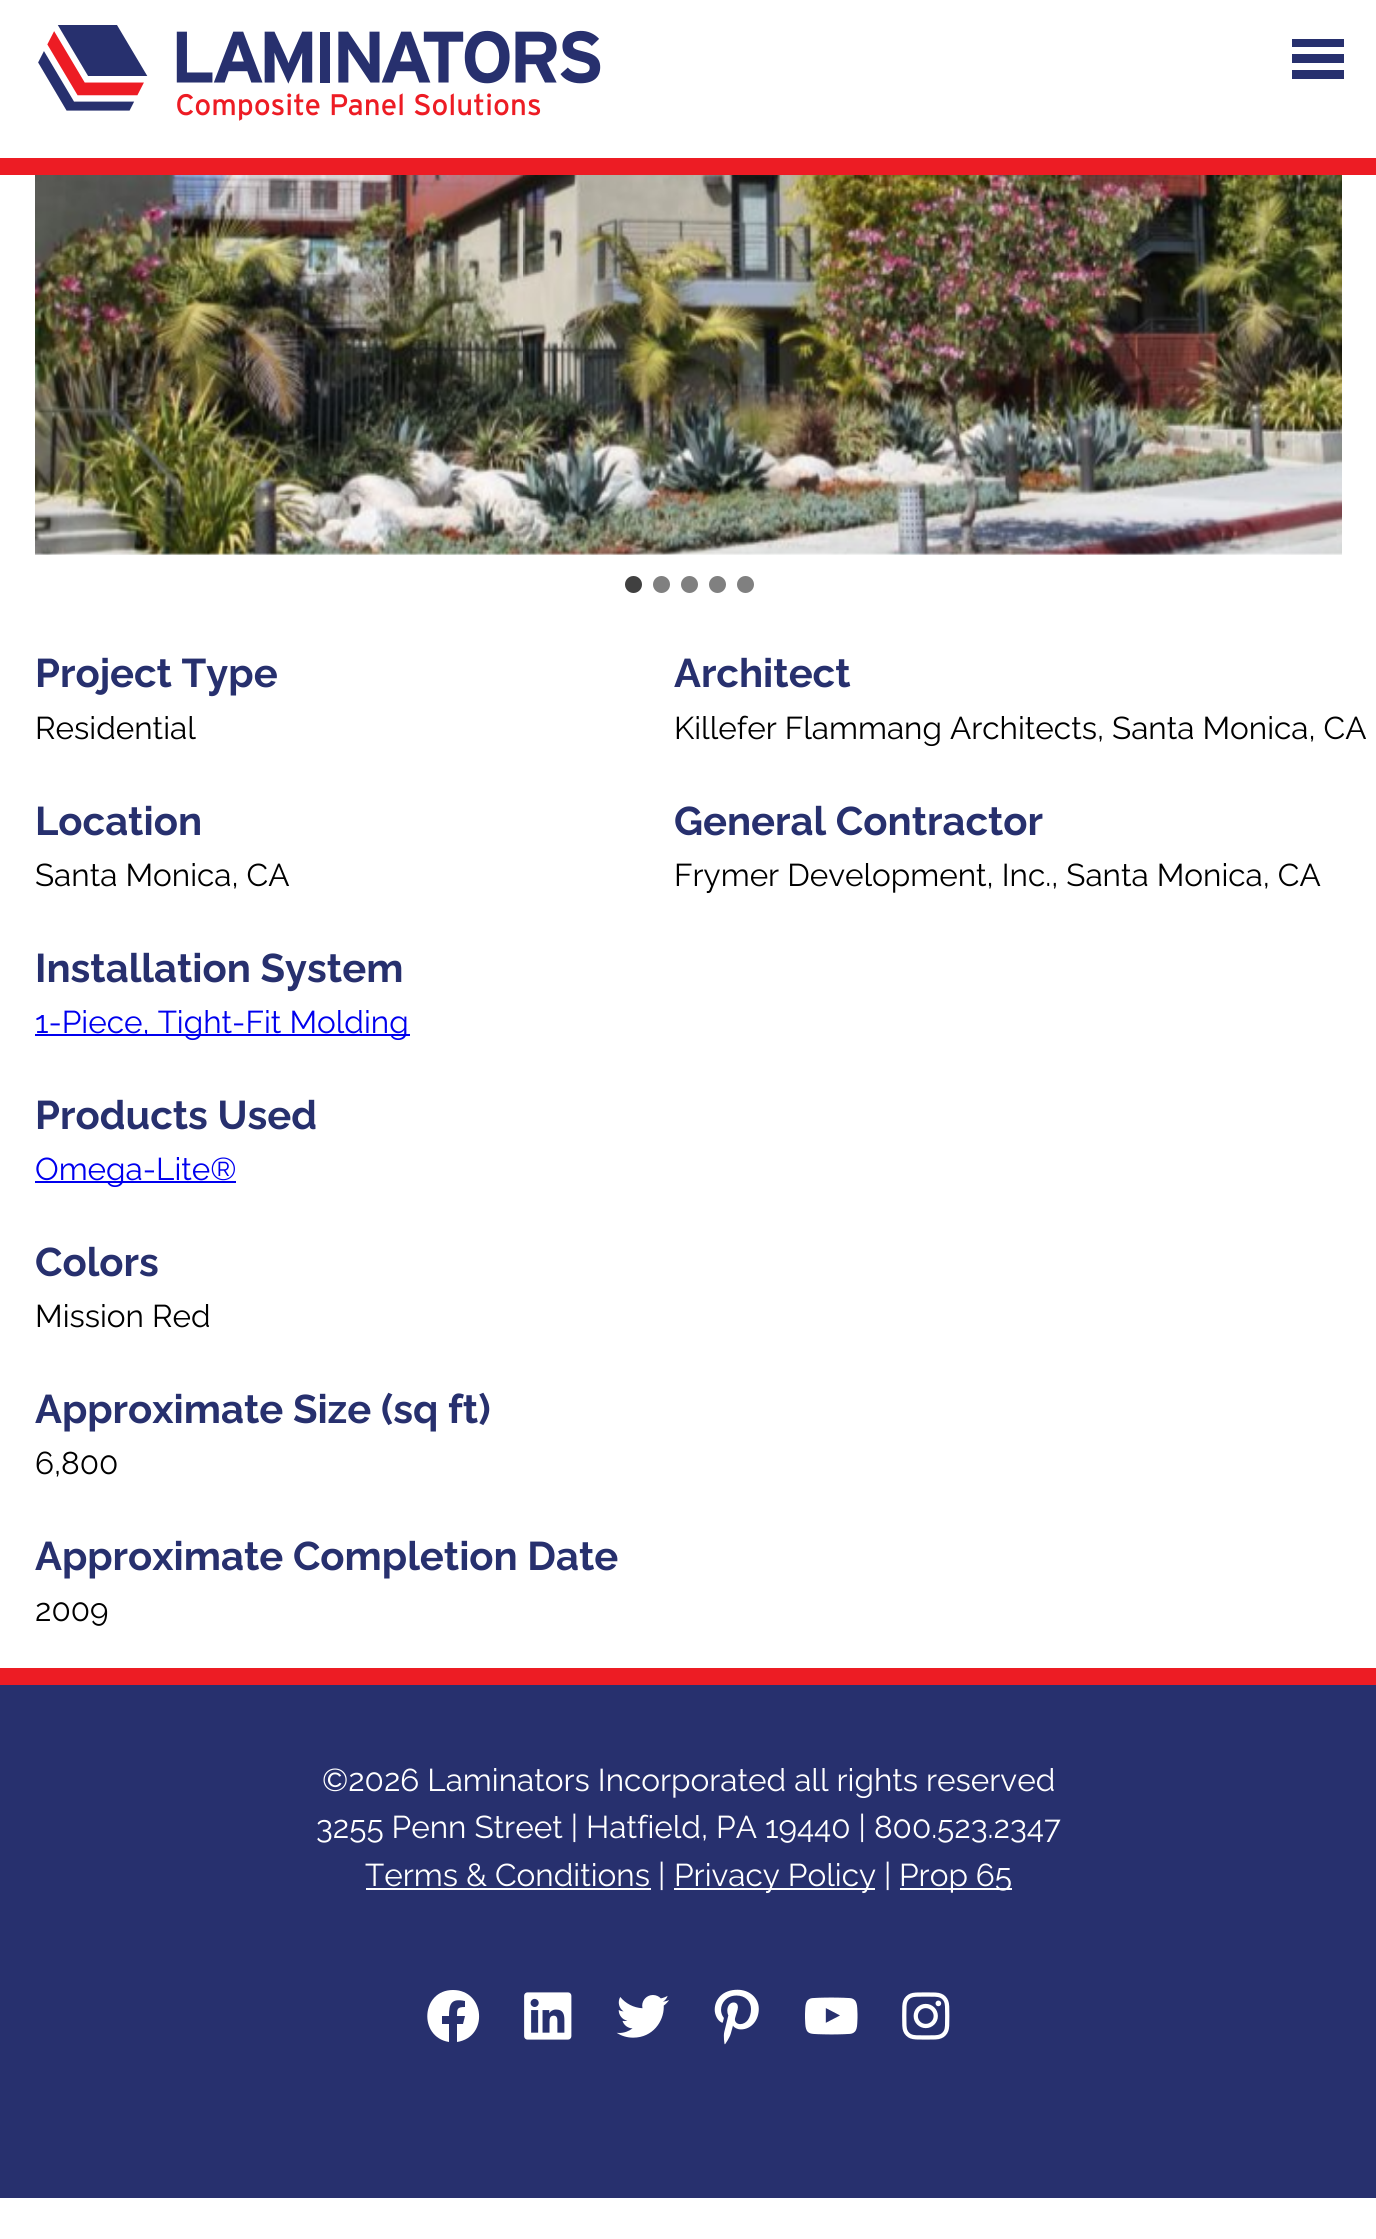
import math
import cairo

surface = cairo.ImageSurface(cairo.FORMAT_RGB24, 1376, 2239)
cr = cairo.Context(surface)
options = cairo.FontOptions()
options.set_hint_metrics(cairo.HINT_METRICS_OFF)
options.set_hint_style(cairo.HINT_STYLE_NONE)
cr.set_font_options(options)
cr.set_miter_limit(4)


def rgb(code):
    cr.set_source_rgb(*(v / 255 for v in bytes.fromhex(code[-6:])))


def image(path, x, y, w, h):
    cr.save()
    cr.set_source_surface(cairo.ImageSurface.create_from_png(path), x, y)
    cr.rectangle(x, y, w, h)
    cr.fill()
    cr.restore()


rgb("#ffffff")
cr.paint()
image("img/1.png", 38, 25, 563, 96)
for x, y, w, h, color in [
    (1292, 54, 52, 9, "#27306e"),
    (1292, 39, 52, 8, "#27306e"),
    (1292, 70, 52, 9, "#27306e"),
    (0, 158, 1376, 17, "#ed1c24"),
]:
    rgb(color)
    cr.rectangle(x, y, w, h)
    cr.fill()
image("img/2.png", 35, 175, 1307, 380)
rgb("#404040")
cr.arc(633.5, 584.5, 8.5, 0, 2 * math.pi)
cr.fill()
rgb("#808080")
cr.arc(661.5, 584.5, 8.5, 0, 2 * math.pi)
cr.fill()
cr.arc(689.5, 584.5, 8.5, 0, 2 * math.pi)
cr.fill()
cr.arc(717.5, 584.5, 8.5, 0, 2 * math.pi)
cr.fill()
cr.arc(745.5, 584.5, 8.5, 0, 2 * math.pi)
cr.fill()
for x, y, w, h, color in [
    (35, 1034, 375, 2, "#0000ee"),
    (35, 1181, 201, 2, "#0000ee"),
    (0, 1685, 1376, 513, "#27306e"),
    (0, 1668, 1376, 17, "#ed1c24"),
    (366, 1888, 285, 2, "#ffffff"),
    (674, 1888, 201, 2, "#ffffff"),
    (900, 1888, 112, 2, "#ffffff"),
]:
    rgb(color)
    cr.rectangle(x, y, w, h)
    cr.fill()
cr.new_path()
cr.move_to(453, 1990)
cr.curve_to(421, 1990, 418, 2037, 449, 2042)
cr.line_to(449, 2024)
cr.line_to(442, 2024)
cr.line_to(442, 2016)
cr.line_to(449, 2016)
cr.curve_to(449, 2004, 451, 1998, 465, 2001)
cr.line_to(465, 2007)
cr.curve_to(457, 2007, 457, 2009, 457, 2016)
cr.line_to(465, 2016)
cr.line_to(463, 2024)
cr.line_to(457, 2024)
cr.line_to(457, 2042)
cr.curve_to(489, 2037, 485, 1990, 453, 1990)
cr.close_path()
cr.fill()
image("img/3.png", 524, 1992, 48, 48)
image("img/4.png", 616, 1995, 53, 43)
image("img/5.png", 714, 1989, 45, 56)
image("img/6.png", 805, 1997, 53, 38)
image("img/7.png", 902, 1992, 48, 48)
cr.select_font_face("Raleway", cairo.FONT_SLANT_NORMAL, cairo.FONT_WEIGHT_BOLD)
cr.set_font_size(40)
rgb("#27306e")
cr.move_to(35, 687)
cr.show_text("Project Type")
cr.select_font_face("Raleway")
cr.set_font_size(31.5)
rgb("#000000")
cr.move_to(35, 739)
cr.show_text("Residential")
cr.select_font_face("Raleway", cairo.FONT_SLANT_NORMAL, cairo.FONT_WEIGHT_BOLD)
cr.set_font_size(40)
rgb("#27306e")
cr.move_to(674, 687)
cr.show_text("Architect")
cr.select_font_face("Raleway")
cr.set_font_size(31.5)
rgb("#000000")
cr.move_to(674, 739)
cr.show_text("Killefer Flammang Architects, Santa Monica, CA")
cr.select_font_face("Raleway", cairo.FONT_SLANT_NORMAL, cairo.FONT_WEIGHT_BOLD)
cr.set_font_size(40)
rgb("#27306e")
cr.move_to(35, 835)
cr.show_text("Location")
cr.select_font_face("Raleway")
cr.set_font_size(31.5)
rgb("#000000")
cr.move_to(35, 886)
cr.show_text("Santa Monica, CA")
cr.select_font_face("Raleway", cairo.FONT_SLANT_NORMAL, cairo.FONT_WEIGHT_BOLD)
cr.set_font_size(40)
rgb("#27306e")
cr.move_to(674, 835)
cr.show_text("General Contractor")
cr.select_font_face("Raleway")
cr.set_font_size(31.5)
rgb("#000000")
cr.move_to(674, 886)
cr.show_text("Frymer Development, Inc., Santa Monica, CA")
cr.select_font_face("Raleway", cairo.FONT_SLANT_NORMAL, cairo.FONT_WEIGHT_BOLD)
cr.set_font_size(40)
rgb("#27306e")
cr.move_to(35, 982)
cr.show_text("Installation System")
cr.select_font_face("Raleway")
cr.set_font_size(31.5)
rgb("#0000ee")
cr.move_to(35, 1033)
cr.show_text("1-Piece, Tight-Fit Molding")
cr.select_font_face("Raleway", cairo.FONT_SLANT_NORMAL, cairo.FONT_WEIGHT_BOLD)
cr.set_font_size(40)
rgb("#27306e")
cr.move_to(35, 1129)
cr.show_text("Products Used")
cr.select_font_face("Raleway")
cr.set_font_size(31.5)
rgb("#0000ee")
cr.move_to(35, 1180)
cr.show_text("Omega-Lite®")
cr.select_font_face("Raleway", cairo.FONT_SLANT_NORMAL, cairo.FONT_WEIGHT_BOLD)
cr.set_font_size(40)
rgb("#27306e")
cr.move_to(35, 1276)
cr.show_text("Colors")
cr.select_font_face("Raleway")
cr.set_font_size(31.5)
rgb("#000000")
cr.move_to(35, 1327)
cr.show_text("Mission Red")
cr.select_font_face("Raleway", cairo.FONT_SLANT_NORMAL, cairo.FONT_WEIGHT_BOLD)
cr.set_font_size(40)
rgb("#27306e")
cr.move_to(35, 1423)
cr.show_text("Approximate Size (sq ft)")
cr.select_font_face("Raleway")
cr.set_font_size(31.5)
rgb("#000000")
cr.move_to(35, 1474)
cr.show_text("6,800")
cr.select_font_face("Raleway", cairo.FONT_SLANT_NORMAL, cairo.FONT_WEIGHT_BOLD)
cr.set_font_size(40)
rgb("#27306e")
cr.move_to(35, 1570)
cr.show_text("Approximate Completion Date")
cr.select_font_face("Raleway")
cr.set_font_size(31.5)
rgb("#000000")
cr.move_to(35, 1621)
cr.show_text("2009")
rgb("#ffffff")
for x, y, s in [
    (322, 1791, "©2026 Laminators Incorporated all rights reserved"),
    (316, 1838, "3255 Penn Street | Hatfield, PA 19440 | 800.523.2347"),
    (365, 1886, "Terms & Conditions |"),
    (674, 1886, "Privacy Policy |"),
    (899, 1886, "Prop 65"),
]:
    cr.move_to(x, y)
    cr.show_text(s)
surface.write_to_png("page.png")
